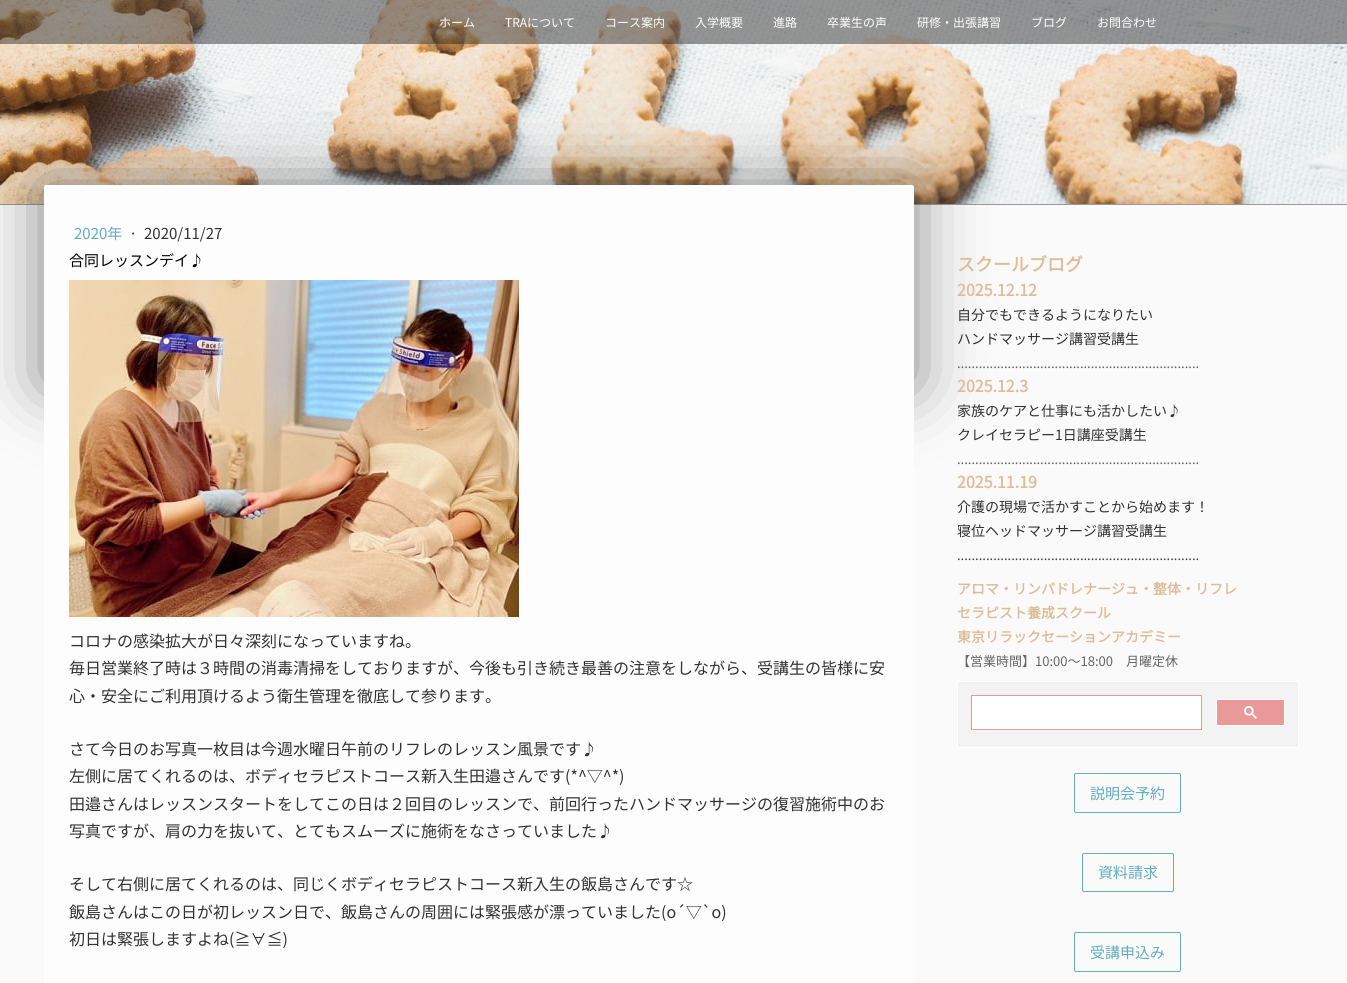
import math
import cairo

surface = cairo.ImageSurface(cairo.FORMAT_RGB24, 1347, 983)
cr = cairo.Context(surface)
options = cairo.FontOptions()
options.set_hint_metrics(cairo.HINT_METRICS_OFF)
options.set_hint_style(cairo.HINT_STYLE_NONE)
cr.set_font_options(options)
cr.set_miter_limit(4)


def rgb(code):
    cr.set_source_rgb(*(v / 255 for v in bytes.fromhex(code[-6:])))


def rrect(x, y, w, h, r):
    cr.new_sub_path()
    for i, (u, v) in enumerate([(x + w - r, y + h - r), (x + r, y + h - r), (x + r, y + r), (x + w - r, y + r)]):
        cr.arc(u, v, r, i * math.pi / 2, (i + 1) * math.pi / 2)
    cr.close_path()


def soft_shadow(x, y, w, h, r, blur, alpha):
    cr.push_group_with_content(cairo.CONTENT_ALPHA)
    cr.set_operator(cairo.OPERATOR_SOURCE)
    for i in range(15, -16, -2):
        e = blur * i / 6
        if min(w, h) + 2 * e > 0:
            cr.set_source_rgba(0, 0, 0, alpha * math.erfc((i - 1) / 8.5) / 2)
            rrect(x - e, y - e, w + 2 * e, h + 2 * e, max(0, min(r + e + blur * .6, min(w, h) / 2 + e)))
            cr.fill()
    cr.mask(cr.pop_group())


def image(path, x, y, w, h):
    cr.save()
    cr.set_source_surface(cairo.ImageSurface.create_from_png(path), x, y)
    cr.rectangle(x, y, w, h)
    cr.fill()
    cr.restore()


rgb("#fafafa")
cr.paint()
image("img/1.png", 0, 0, 1347, 204)
cr.set_source_rgba(0.2, 0.2, 0.2, 0.5)
cr.rectangle(0, 0, 1347, 44)
cr.fill()
rgb("#999999")
cr.rectangle(0, 204, 1347, 1)
cr.fill()
rgb("#333333")
soft_shadow(43, 185, 871, 200, 0, 34, 0.6)
rgb("#fdfdfd")
rrect(44, 185, 870, 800, 2)
cr.fill()
image("img/2.png", 69, 280, 450, 337)
rgb("#f3f3f3")
cr.rectangle(957.5, 681.5, 341, 66)
cr.fill_preserve()
rgb("#ffffff")
cr.set_line_width(1)
cr.stroke()
cr.rectangle(971.5, 695.5, 230, 34)
cr.fill_preserve()
rgb("#ea9999")
cr.stroke()
rrect(1216.5, 699.5, 68, 26, 1.5)
cr.fill_preserve()
rgb("#ffffff")
cr.stroke()
image("img/3.png", 1244, 706, 13, 13)
rrect(1074.5, 773.5, 106, 39, 1.5)
rgb("#64acbe")
cr.stroke()
rrect(1082.5, 853.5, 91, 38, 1.5)
cr.stroke()
rrect(1074.5, 932.5, 106, 39, 1.5)
cr.stroke()
cr.select_font_face("Noto Sans JP Thin")
cr.set_font_size(12)
rgb("#fdfdfd")
for x, y, s in [
    (439, 27, "ホーム"),
    (505, 27, "TRAについて"),
    (605, 27, "コース案内"),
    (695, 27, "入学概要"),
    (773, 27, "進路"),
    (827, 27, "卒業生の声"),
    (917, 27, "研修・出張講習"),
    (1031, 27, "ブログ"),
    (1097, 27, "お問合わせ"),
]:
    cr.move_to(x, y)
    cr.show_text(s)
cr.set_font_size(15)
rgb("#64acbe")
cr.move_to(74, 239)
cr.show_text("2020年")
rgb("#323232")
cr.move_to(129, 239)
cr.show_text("·")
cr.move_to(144, 239)
cr.show_text("2020/11/27")
rgb("#000000")
cr.move_to(69, 266)
cr.show_text("合同レッスンデイ♪")
cr.set_font_size(16)
rgb("#323232")
for x, y, s in [
    (69, 647, "コロナの感染拡大が日々深刻になっていますね。"),
    (69, 674, "毎日営業終了時は３時間の消毒清掃をしておりますが、今後も引き続き最善の注意をしながら、受講生の皆様に安"),
    (69, 702, "心・安全にご利用頂けるよう衛生管理を徹底して参ります。"),
    (69, 755, "さて今日のお写真一枚目は今週水曜日午前のリフレのレッスン風景です♪"),
    (69, 782, "左側に居てくれるのは、ボディセラピストコース新入生田邉さんです(*^▽^*)"),
    (69, 810, "田邉さんはレッスンスタートをしてこの日は２回目のレッスンで、前回行ったハンドマッサージの復習施術中のお"),
    (69, 837, "写真ですが、肩の力を抜いて、とてもスムーズに施術をなさっていました♪"),
    (69, 890, "そして右側に居てくれるのは、同じくボディセラピストコース新入生の飯島さんです☆"),
    (69, 918, "飯島さんはこの日が初レッスン日で、飯島さんの周囲には緊張感が漂っていました(o´▽`o)"),
    (69, 945, "初日は緊張しますよね(≧∀≦)"),
]:
    cr.move_to(x, y)
    cr.show_text(s)
cr.select_font_face("Noto Sans JP", cairo.FONT_SLANT_NORMAL, cairo.FONT_WEIGHT_BOLD)
cr.set_font_size(18)
rgb("#dfbd9a")
cr.move_to(957, 271)
cr.show_text("スクールブログ")
cr.set_font_size(16)
cr.move_to(957, 296)
cr.show_text("2025.12.12")
cr.select_font_face("Noto Sans JP Thin")
cr.set_font_size(14)
rgb("#323232")
cr.move_to(957, 320)
cr.show_text("自分でもできるようになりたい")
cr.move_to(957, 344)
cr.show_text("ハンドマッサージ講習受講生")
cr.set_font_size(13)
rgb("#666666")
cr.move_to(957, 368)
cr.show_text("...................................................................")
cr.select_font_face("Noto Sans JP", cairo.FONT_SLANT_NORMAL, cairo.FONT_WEIGHT_BOLD)
cr.set_font_size(16)
rgb("#dfbd9a")
cr.move_to(957, 392)
cr.show_text("2025.12.3")
cr.select_font_face("Noto Sans JP Thin")
cr.set_font_size(14)
rgb("#323232")
cr.move_to(957, 416)
cr.show_text("家族のケアと仕事にも活かしたい♪")
cr.move_to(957, 440)
cr.show_text("クレイセラピー1日講座受講生")
cr.set_font_size(13)
rgb("#666666")
cr.move_to(957, 464)
cr.show_text("...................................................................")
cr.select_font_face("Noto Sans JP", cairo.FONT_SLANT_NORMAL, cairo.FONT_WEIGHT_BOLD)
cr.set_font_size(16)
rgb("#dfbd9a")
cr.move_to(957, 488)
cr.show_text("2025.11.19")
cr.select_font_face("Noto Sans JP Thin")
cr.set_font_size(14)
rgb("#323232")
cr.move_to(957, 512)
cr.show_text("介護の現場で活かすことから始めます！")
cr.move_to(957, 536)
cr.show_text("寝位ヘッドマッサージ講習受講生")
cr.set_font_size(13)
rgb("#454545")
cr.move_to(957, 560)
cr.show_text("...................................................................")
cr.select_font_face("Noto Sans JP", cairo.FONT_SLANT_NORMAL, cairo.FONT_WEIGHT_BOLD)
cr.set_font_size(14)
rgb("#dfbd9a")
for x, y, s in [
    (957, 594, "アロマ・リンパドレナージュ・整体・リフレ"),
    (957, 618, "セラピスト養成スクール"),
    (957, 642, "東京リラックセーションアカデミー"),
]:
    cr.move_to(x, y)
    cr.show_text(s)
cr.select_font_face("Noto Sans JP Thin")
cr.set_font_size(13)
rgb("#666666")
cr.move_to(957, 666)
cr.show_text("【営業時間】10:00～18:00　月曜定休")
cr.set_font_size(15)
rgb("#64acbe")
for x, y, s in [
    (1090, 799, "説明会予約"),
    (1098, 878, "資料請求"),
    (1090, 958, "受講申込み"),
]:
    cr.move_to(x, y)
    cr.show_text(s)
surface.write_to_png("page.png")
